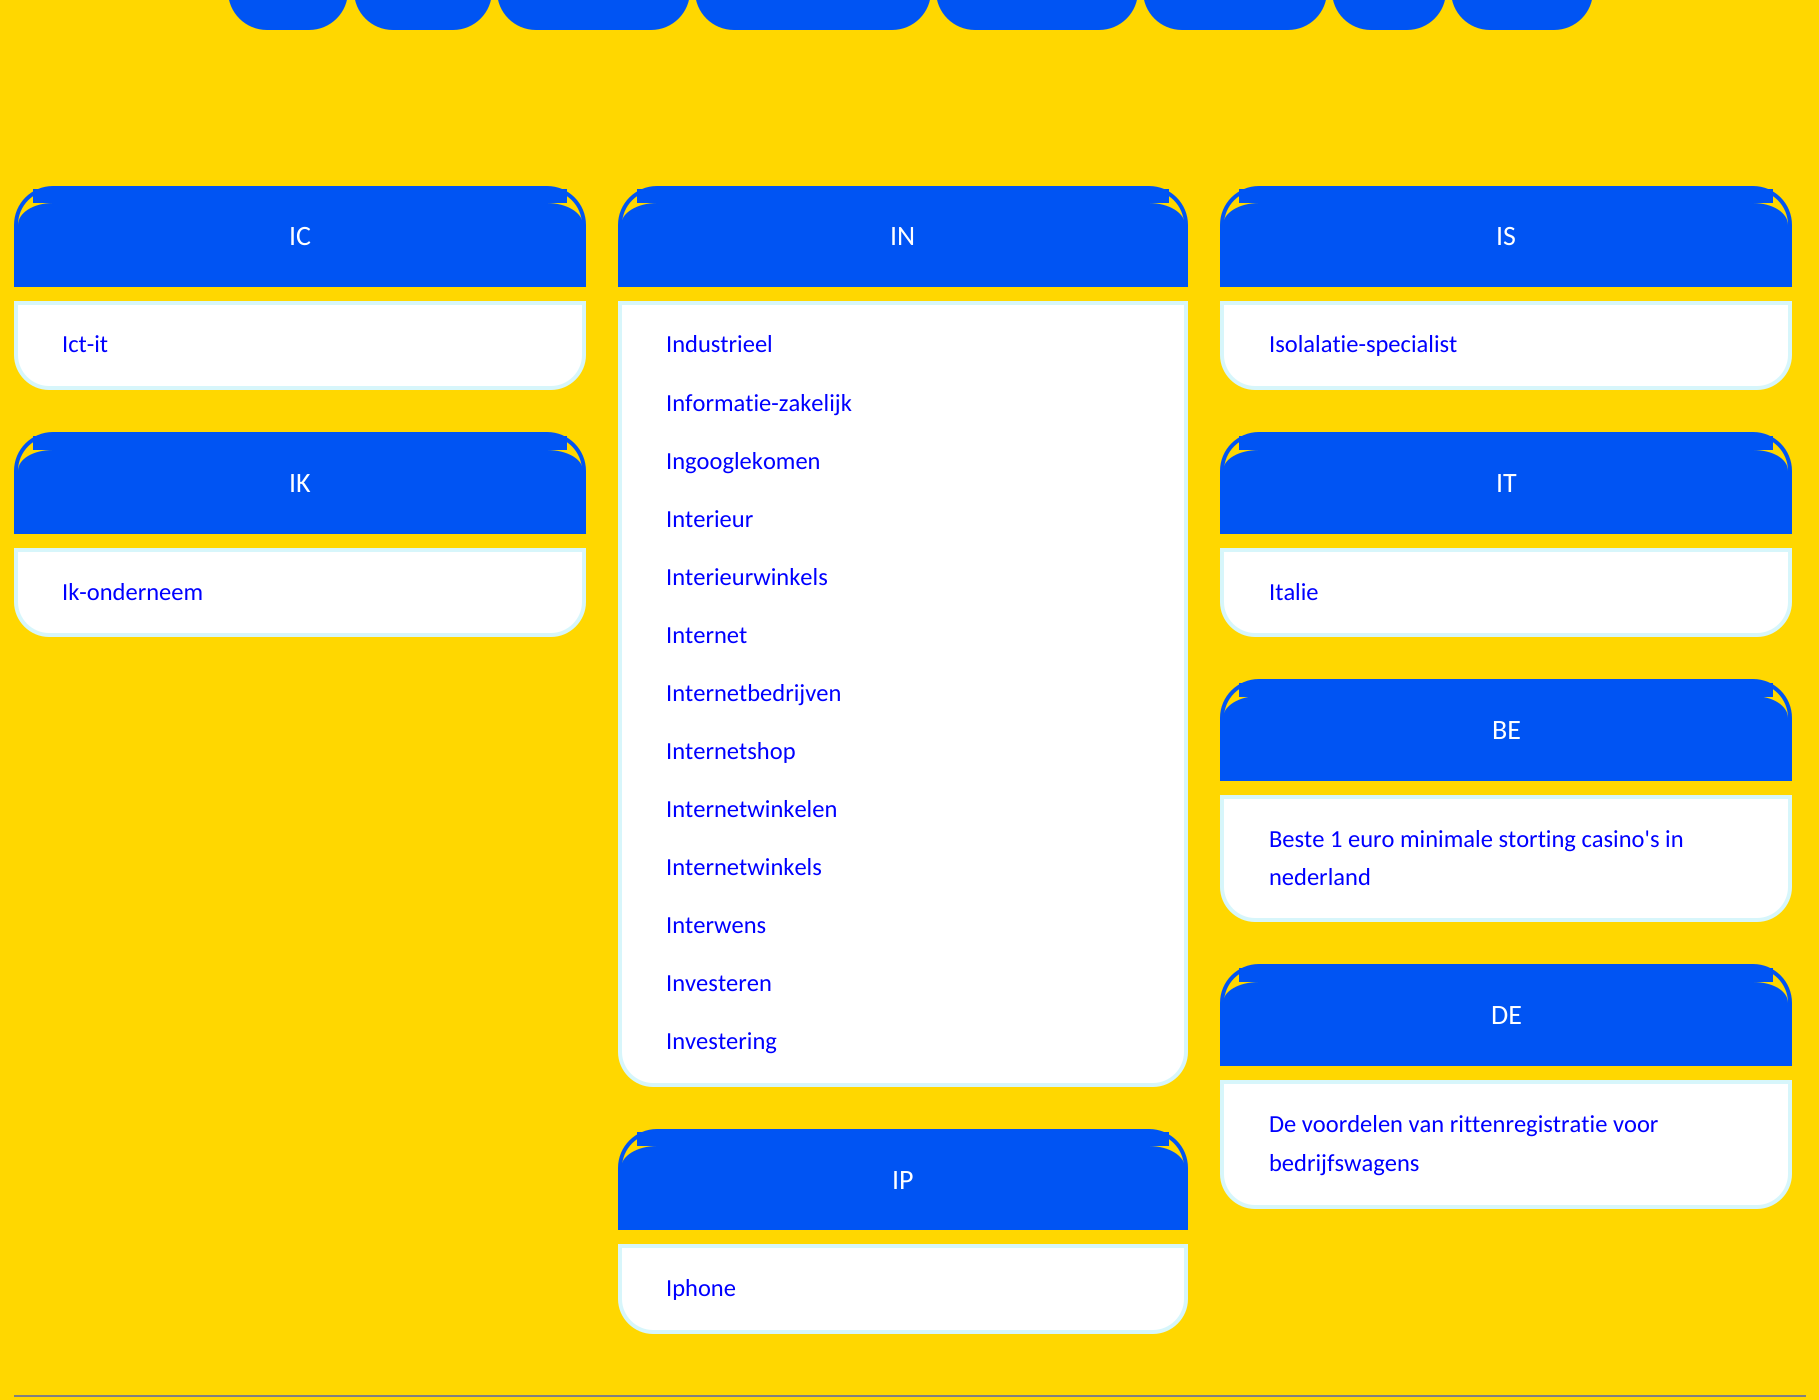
import math
import cairo

surface = cairo.ImageSurface(cairo.FORMAT_RGB24, 1819, 1400)
cr = cairo.Context(surface)
options = cairo.FontOptions()
options.set_hint_metrics(cairo.HINT_METRICS_OFF)
options.set_hint_style(cairo.HINT_STYLE_NONE)
cr.set_font_options(options)
cr.set_miter_limit(4)


def rgb(code):
    cr.set_source_rgb(*(v / 255 for v in bytes.fromhex(code[-6:])))


rgb("#ffd700")
cr.paint()
rgb("#0054f3")
cr.new_path()
cr.move_to(230, -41)
cr.line_to(346, -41)
cr.line_to(346, -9)
cr.curve_to(346, 11.5, 329.5, 28, 309, 28)
cr.line_to(267, 28)
cr.curve_to(246.5, 28, 230, 11.5, 230, -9)
cr.close_path()
cr.fill_preserve()
cr.set_line_width(4)
cr.stroke()
cr.new_path()
cr.move_to(356, -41)
cr.line_to(490, -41)
cr.line_to(490, -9)
cr.curve_to(490, 11.5, 473.5, 28, 453, 28)
cr.line_to(393, 28)
cr.curve_to(372.5, 28, 356, 11.5, 356, -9)
cr.close_path()
cr.fill_preserve()
cr.stroke()
cr.new_path()
cr.move_to(499, -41)
cr.line_to(688, -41)
cr.line_to(688, -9)
cr.curve_to(688, 11.5, 671.5, 28, 651, 28)
cr.line_to(536, 28)
cr.curve_to(515.5, 28, 499, 11.5, 499, -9)
cr.close_path()
cr.fill_preserve()
cr.stroke()
cr.new_path()
cr.move_to(697, -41)
cr.line_to(929, -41)
cr.line_to(929, -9)
cr.curve_to(929, 11.5, 912.5, 28, 892, 28)
cr.line_to(734, 28)
cr.curve_to(713.5, 28, 697, 11.5, 697, -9)
cr.close_path()
cr.fill_preserve()
cr.stroke()
cr.new_path()
cr.move_to(938, -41)
cr.line_to(1136, -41)
cr.line_to(1136, -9)
cr.curve_to(1136, 11.5, 1119.5, 28, 1099, 28)
cr.line_to(975, 28)
cr.curve_to(954.5, 28, 938, 11.5, 938, -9)
cr.close_path()
cr.fill_preserve()
cr.stroke()
cr.new_path()
cr.move_to(1145, -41)
cr.line_to(1325, -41)
cr.line_to(1325, -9)
cr.curve_to(1325, 11.5, 1308.5, 28, 1288, 28)
cr.line_to(1182, 28)
cr.curve_to(1161.5, 28, 1145, 11.5, 1145, -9)
cr.close_path()
cr.fill_preserve()
cr.stroke()
cr.new_path()
cr.move_to(1334, -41)
cr.line_to(1444, -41)
cr.line_to(1444, -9)
cr.curve_to(1444, 11.5, 1427.5, 28, 1407, 28)
cr.line_to(1371, 28)
cr.curve_to(1350.5, 28, 1334, 11.5, 1334, -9)
cr.close_path()
cr.fill_preserve()
cr.stroke()
cr.new_path()
cr.move_to(1453, -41)
cr.line_to(1591, -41)
cr.line_to(1591, -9)
cr.curve_to(1591, 11.5, 1574.5, 28, 1554, 28)
cr.line_to(1490, 28)
cr.curve_to(1469.5, 28, 1453, 11.5, 1453, -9)
cr.close_path()
cr.fill_preserve()
cr.stroke()
cr.new_path()
cr.move_to(53, 203)
cr.line_to(547, 203)
cr.curve_to(567, 203, 583, 213, 583, 225)
cr.line_to(583, 270)
cr.line_to(18, 270)
cr.line_to(18, 225)
cr.curve_to(18, 213, 33, 203, 53, 203)
cr.close_path()
cr.fill()
cr.new_path()
cr.move_to(53, 188)
cr.line_to(547, 188)
cr.curve_to(567.5, 188, 584, 204.5, 584, 225)
cr.line_to(584, 285)
cr.line_to(16, 285)
cr.line_to(16, 225)
cr.curve_to(16, 204.5, 32.5, 188, 53, 188)
cr.close_path()
cr.stroke()
cr.rectangle(33, 189, 534, 14)
cr.fill()
cr.rectangle(18, 270, 564, 13)
cr.fill()
rgb("#ffffff")
cr.new_path()
cr.move_to(16, 303)
cr.line_to(584, 303)
cr.line_to(584, 355)
cr.curve_to(584, 373, 569, 388, 551, 388)
cr.line_to(49, 388)
cr.curve_to(31, 388, 16, 373, 16, 355)
cr.close_path()
cr.fill_preserve()
rgb("#d7f6fb")
cr.stroke()
rgb("#0054f3")
cr.new_path()
cr.move_to(657, 203)
cr.line_to(1149, 203)
cr.curve_to(1169, 203, 1185, 213, 1185, 225)
cr.line_to(1185, 270)
cr.line_to(621, 270)
cr.line_to(621, 225)
cr.curve_to(621, 213, 637, 203, 657, 203)
cr.close_path()
cr.fill()
cr.new_path()
cr.move_to(657, 188)
cr.line_to(1149, 188)
cr.curve_to(1169.5, 188, 1186, 204.5, 1186, 225)
cr.line_to(1186, 285)
cr.line_to(620, 285)
cr.line_to(620, 225)
cr.curve_to(620, 204.5, 636.5, 188, 657, 188)
cr.close_path()
cr.stroke()
cr.rectangle(637, 189, 532, 14)
cr.fill()
cr.rectangle(622, 270, 562, 13)
cr.fill()
rgb("#ffffff")
cr.new_path()
cr.move_to(620, 303)
cr.line_to(1186, 303)
cr.line_to(1186, 1052)
cr.curve_to(1186, 1070, 1171, 1085, 1153, 1085)
cr.line_to(653, 1085)
cr.curve_to(635, 1085, 620, 1070, 620, 1052)
cr.close_path()
cr.fill_preserve()
rgb("#d7f6fb")
cr.stroke()
rgb("#0054f3")
cr.new_path()
cr.move_to(1259, 203)
cr.line_to(1753, 203)
cr.curve_to(1773, 203, 1788, 213, 1788, 225)
cr.line_to(1788, 270)
cr.line_to(1223, 270)
cr.line_to(1223, 225)
cr.curve_to(1223, 213, 1239, 203, 1259, 203)
cr.close_path()
cr.fill()
cr.new_path()
cr.move_to(1259, 188)
cr.line_to(1753, 188)
cr.curve_to(1773.5, 188, 1790, 204.5, 1790, 225)
cr.line_to(1790, 285)
cr.line_to(1222, 285)
cr.line_to(1222, 225)
cr.curve_to(1222, 204.5, 1238.5, 188, 1259, 188)
cr.close_path()
cr.stroke()
cr.rectangle(1239, 189, 534, 14)
cr.fill()
cr.rectangle(1224, 270, 564, 13)
cr.fill()
rgb("#ffffff")
cr.new_path()
cr.move_to(1222, 303)
cr.line_to(1790, 303)
cr.line_to(1790, 355)
cr.curve_to(1790, 373, 1775, 388, 1757, 388)
cr.line_to(1255, 388)
cr.curve_to(1237, 388, 1222, 373, 1222, 355)
cr.close_path()
cr.fill_preserve()
rgb("#d7f6fb")
cr.stroke()
rgb("#0054f3")
cr.new_path()
cr.move_to(53, 450)
cr.line_to(547, 450)
cr.curve_to(567, 450, 583, 459, 583, 471)
cr.line_to(583, 516)
cr.line_to(18, 516)
cr.line_to(18, 471)
cr.curve_to(18, 459, 33, 450, 53, 450)
cr.close_path()
cr.fill()
cr.new_path()
cr.move_to(53, 434)
cr.line_to(547, 434)
cr.curve_to(567.5, 434, 584, 450.5, 584, 471)
cr.line_to(584, 532)
cr.line_to(16, 532)
cr.line_to(16, 471)
cr.curve_to(16, 450.5, 32.5, 434, 53, 434)
cr.close_path()
cr.stroke()
cr.rectangle(33, 436, 534, 14)
cr.fill()
cr.rectangle(18, 516, 564, 14)
cr.fill()
rgb("#ffffff")
cr.new_path()
cr.move_to(16, 550)
cr.line_to(584, 550)
cr.line_to(584, 602)
cr.curve_to(584, 620, 569, 635, 551, 635)
cr.line_to(49, 635)
cr.curve_to(31, 635, 16, 620, 16, 602)
cr.close_path()
cr.fill_preserve()
rgb("#d7f6fb")
cr.stroke()
rgb("#0054f3")
cr.new_path()
cr.move_to(1259, 450)
cr.line_to(1753, 450)
cr.curve_to(1773, 450, 1788, 459, 1788, 471)
cr.line_to(1788, 516)
cr.line_to(1223, 516)
cr.line_to(1223, 471)
cr.curve_to(1223, 459, 1239, 450, 1259, 450)
cr.close_path()
cr.fill()
cr.new_path()
cr.move_to(1259, 434)
cr.line_to(1753, 434)
cr.curve_to(1773.5, 434, 1790, 450.5, 1790, 471)
cr.line_to(1790, 532)
cr.line_to(1222, 532)
cr.line_to(1222, 471)
cr.curve_to(1222, 450.5, 1238.5, 434, 1259, 434)
cr.close_path()
cr.stroke()
cr.rectangle(1239, 436, 534, 14)
cr.fill()
cr.rectangle(1224, 516, 564, 14)
cr.fill()
rgb("#ffffff")
cr.new_path()
cr.move_to(1222, 550)
cr.line_to(1790, 550)
cr.line_to(1790, 602)
cr.curve_to(1790, 620, 1775, 635, 1757, 635)
cr.line_to(1255, 635)
cr.curve_to(1237, 635, 1222, 620, 1222, 602)
cr.close_path()
cr.fill_preserve()
rgb("#d7f6fb")
cr.stroke()
rgb("#0054f3")
cr.new_path()
cr.move_to(1259, 696)
cr.line_to(1753, 696)
cr.curve_to(1773, 696, 1788, 706, 1788, 718)
cr.line_to(1788, 763)
cr.line_to(1223, 763)
cr.line_to(1223, 718)
cr.curve_to(1223, 706, 1239, 696, 1259, 696)
cr.close_path()
cr.fill()
cr.new_path()
cr.move_to(1259, 681)
cr.line_to(1753, 681)
cr.curve_to(1773.5, 681, 1790, 697.5, 1790, 718)
cr.line_to(1790, 779)
cr.line_to(1222, 779)
cr.line_to(1222, 718)
cr.curve_to(1222, 697.5, 1238.5, 681, 1259, 681)
cr.close_path()
cr.stroke()
cr.rectangle(1239, 683, 534, 14)
cr.fill()
cr.rectangle(1224, 763, 564, 14)
cr.fill()
rgb("#ffffff")
cr.new_path()
cr.move_to(1222, 797)
cr.line_to(1790, 797)
cr.line_to(1790, 887)
cr.curve_to(1790, 905, 1775, 920, 1757, 920)
cr.line_to(1255, 920)
cr.curve_to(1237, 920, 1222, 905, 1222, 887)
cr.close_path()
cr.fill_preserve()
rgb("#d7f6fb")
cr.stroke()
rgb("#0054f3")
cr.new_path()
cr.move_to(1259, 982)
cr.line_to(1753, 982)
cr.curve_to(1773, 982, 1788, 991, 1788, 1003)
cr.line_to(1788, 1048)
cr.line_to(1223, 1048)
cr.line_to(1223, 1003)
cr.curve_to(1223, 991, 1239, 982, 1259, 982)
cr.close_path()
cr.fill()
cr.new_path()
cr.move_to(1259, 966)
cr.line_to(1753, 966)
cr.curve_to(1773.5, 966, 1790, 982.5, 1790, 1003)
cr.line_to(1790, 1064)
cr.line_to(1222, 1064)
cr.line_to(1222, 1003)
cr.curve_to(1222, 982.5, 1238.5, 966, 1259, 966)
cr.close_path()
cr.stroke()
cr.rectangle(1239, 968, 534, 14)
cr.fill()
cr.rectangle(1224, 1048, 564, 14)
cr.fill()
rgb("#ffffff")
cr.new_path()
cr.move_to(1222, 1082)
cr.line_to(1790, 1082)
cr.line_to(1790, 1174)
cr.curve_to(1790, 1192, 1775, 1207, 1757, 1207)
cr.line_to(1255, 1207)
cr.curve_to(1237, 1207, 1222, 1192, 1222, 1174)
cr.close_path()
cr.fill_preserve()
rgb("#d7f6fb")
cr.stroke()
rgb("#0054f3")
cr.new_path()
cr.move_to(657, 1146)
cr.line_to(1149, 1146)
cr.curve_to(1169, 1146, 1185, 1156, 1185, 1168)
cr.line_to(1185, 1213)
cr.line_to(621, 1213)
cr.line_to(621, 1168)
cr.curve_to(621, 1156, 637, 1146, 657, 1146)
cr.close_path()
cr.fill()
cr.new_path()
cr.move_to(657, 1131)
cr.line_to(1149, 1131)
cr.curve_to(1169.5, 1131, 1186, 1147.5, 1186, 1168)
cr.line_to(1186, 1228)
cr.line_to(620, 1228)
cr.line_to(620, 1168)
cr.curve_to(620, 1147.5, 636.5, 1131, 657, 1131)
cr.close_path()
cr.stroke()
cr.rectangle(637, 1132, 532, 14)
cr.fill()
cr.rectangle(622, 1213, 562, 13)
cr.fill()
rgb("#ffffff")
cr.new_path()
cr.move_to(620, 1246)
cr.line_to(1186, 1246)
cr.line_to(1186, 1299)
cr.curve_to(1186, 1317, 1171, 1332, 1153, 1332)
cr.line_to(653, 1332)
cr.curve_to(635, 1332, 620, 1317, 620, 1299)
cr.close_path()
cr.fill_preserve()
rgb("#d7f6fb")
cr.stroke()
rgb("#808080")
cr.rectangle(14, 1395, 1792, 2)
cr.fill()
cr.select_font_face("Carlito")
cr.set_font_size(28)
rgb("#ffffff")
cr.move_to(289, 245)
cr.show_text("IC")
cr.set_font_size(24.5)
rgb("#0000ff")
cr.move_to(62, 352)
cr.show_text("Ict-it")
cr.set_font_size(28)
rgb("#ffffff")
cr.move_to(890, 245)
cr.show_text("IN")
cr.set_font_size(24.5)
rgb("#0000ff")
for x, y, s in [
    (666, 352, "Industrieel"),
    (666, 411, "Informatie-zakelijk"),
    (666, 469, "Ingooglekomen"),
    (666, 527, "Interieur"),
    (666, 585, "Interieurwinkels"),
    (666, 643, "Internet"),
    (666, 701, "Internetbedrijven"),
    (666, 759, "Internetshop"),
    (666, 817, "Internetwinkelen"),
    (666, 875, "Internetwinkels"),
    (666, 933, "Interwens"),
    (666, 991, "Investeren"),
    (666, 1049, "Investering"),
]:
    cr.move_to(x, y)
    cr.show_text(s)
cr.set_font_size(28)
rgb("#ffffff")
cr.move_to(1496, 245)
cr.show_text("IS")
cr.set_font_size(24.5)
rgb("#0000ff")
cr.move_to(1269, 352)
cr.show_text("Isolalatie-specialist")
cr.set_font_size(28)
rgb("#ffffff")
cr.move_to(289, 492)
cr.show_text("IK")
cr.set_font_size(24.5)
rgb("#0000ff")
cr.move_to(62, 600)
cr.show_text("Ik-onderneem")
cr.set_font_size(28)
rgb("#ffffff")
cr.move_to(1496, 492)
cr.show_text("IT")
cr.set_font_size(24.5)
rgb("#0000ff")
cr.move_to(1269, 600)
cr.show_text("Italie")
cr.set_font_size(28)
rgb("#ffffff")
cr.move_to(1492, 739)
cr.show_text("BE")
cr.set_font_size(24.5)
rgb("#0000ff")
cr.move_to(1269, 847)
cr.show_text("Beste 1 euro minimale storting casino's in")
cr.move_to(1269, 885)
cr.show_text("nederland")
cr.set_font_size(28)
rgb("#ffffff")
cr.move_to(1491, 1024)
cr.show_text("DE")
cr.set_font_size(24.5)
rgb("#0000ff")
cr.move_to(1269, 1132)
cr.show_text("De voordelen van rittenregistratie voor")
cr.move_to(1269, 1171)
cr.show_text("bedrijfswagens")
cr.set_font_size(28)
rgb("#ffffff")
cr.move_to(892, 1189)
cr.show_text("IP")
cr.set_font_size(24.5)
rgb("#0000ff")
cr.move_to(666, 1296)
cr.show_text("Iphone")
surface.write_to_png("page.png")
